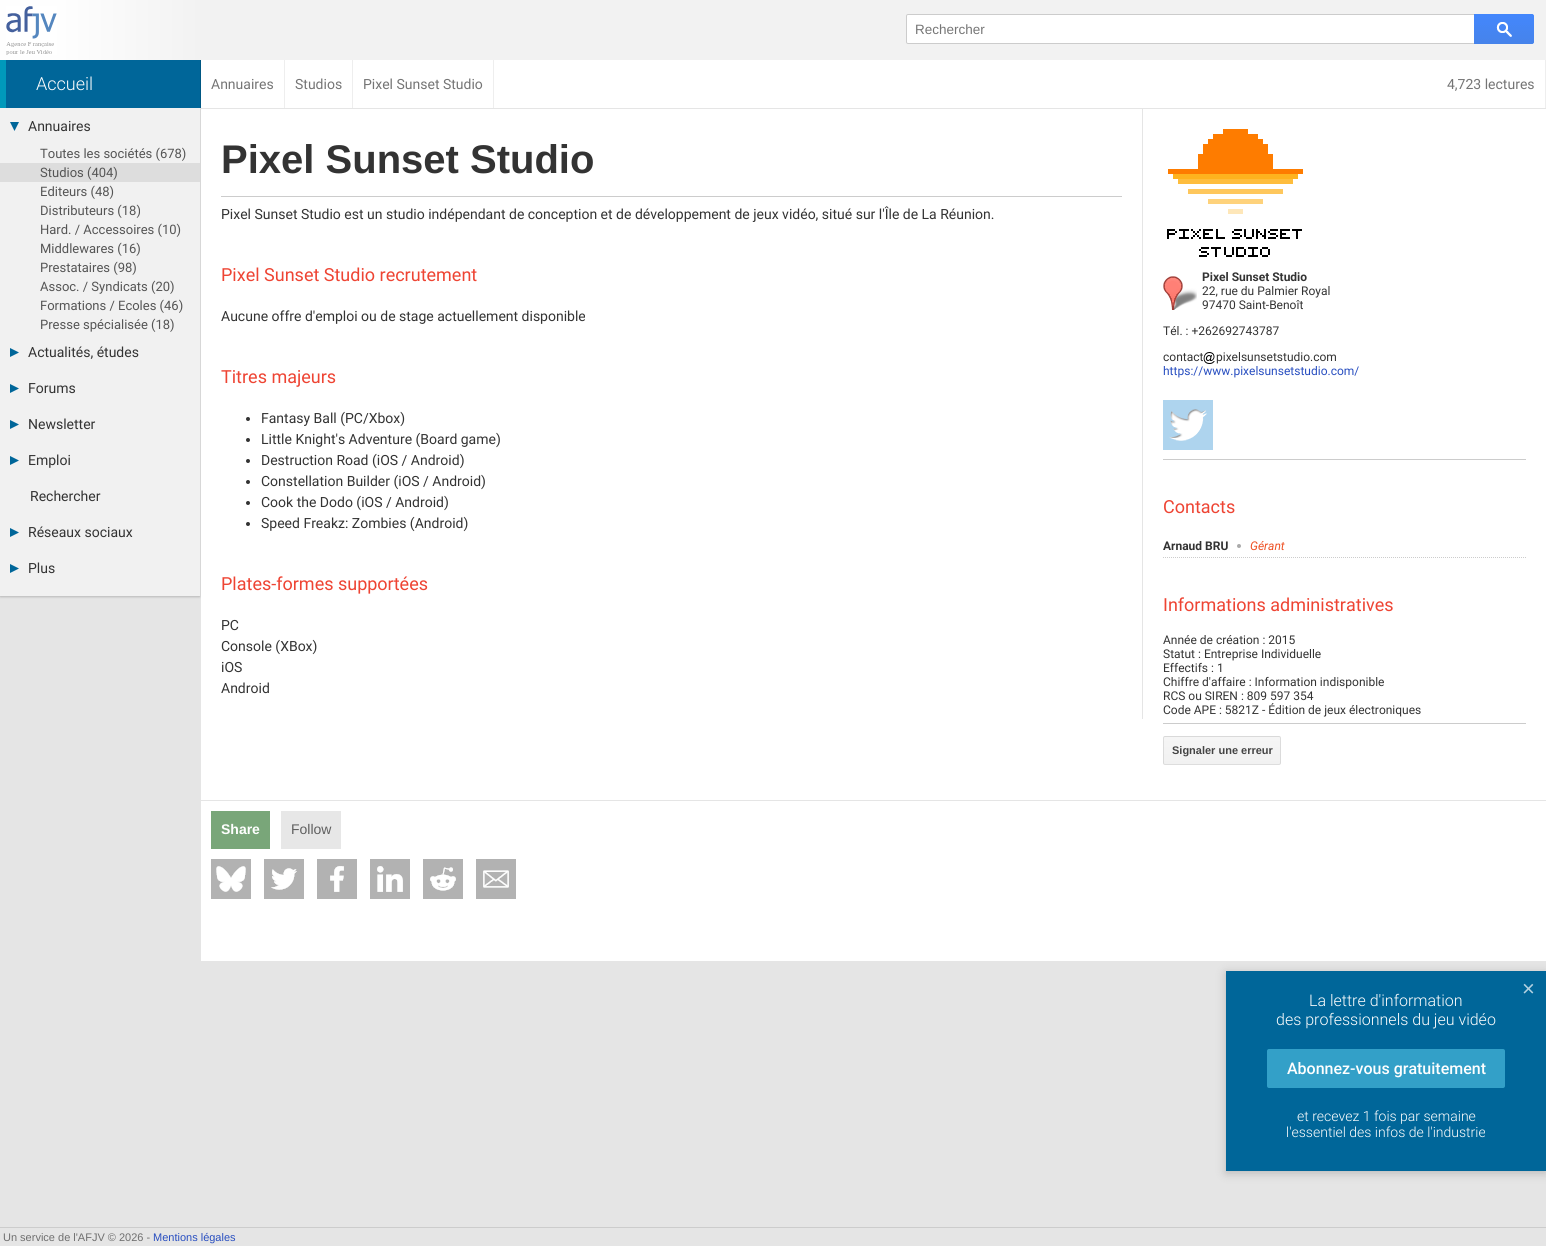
import math
import cairo

surface = cairo.ImageSurface(cairo.FORMAT_RGB24, 1546, 1246)
cr = cairo.Context(surface)
options = cairo.FontOptions()
options.set_hint_metrics(cairo.HINT_METRICS_OFF)
options.set_hint_style(cairo.HINT_STYLE_NONE)
cr.set_font_options(options)
cr.set_miter_limit(4)


def rgb(code):
    cr.set_source_rgb(*(v / 255 for v in bytes.fromhex(code[-6:])))


def rrect(x, y, w, h, r):
    cr.new_sub_path()
    for i, (u, v) in enumerate([(x + w - r, y + h - r), (x + r, y + h - r), (x + r, y + r), (x + w - r, y + r)]):
        cr.arc(u, v, r, i * math.pi / 2, (i + 1) * math.pi / 2)
    cr.close_path()


def soft_shadow(x, y, w, h, r, blur, alpha):
    cr.push_group_with_content(cairo.CONTENT_ALPHA)
    cr.set_operator(cairo.OPERATOR_SOURCE)
    for i in range(15, -16, -2):
        e = blur * i / 6
        if min(w, h) + 2 * e > 0:
            cr.set_source_rgba(0, 0, 0, alpha * math.erfc((i - 1) / 8.5) / 2)
            rrect(x - e, y - e, w + 2 * e, h + 2 * e, max(0, min(r + e + blur * .6, min(w, h) / 2 + e)))
            cr.fill()
    cr.mask(cr.pop_group())


def image(path, x, y, w, h):
    cr.save()
    cr.set_source_surface(cairo.ImageSurface.create_from_png(path), x, y)
    cr.rectangle(x, y, w, h)
    cr.fill()
    cr.restore()


rgb("#e5e5e5")
cr.paint()
rgb("#f2f2f2")
cr.rectangle(201, 0, 1345, 60)
cr.fill()
gradient = cairo.LinearGradient(0, 30, 201, 30)
gradient.add_color_stop_rgba(0, 0.996, 0.996, 0.996, 1)
gradient.add_color_stop_rgba(0.3, 0.996, 0.996, 0.996, 1)
gradient.add_color_stop_rgba(1, 0.949, 0.949, 0.949, 1)
cr.set_source(gradient)
cr.rectangle(0, 0, 201, 60)
cr.fill()
image("img/1.png", 6, 6, 51, 49)
rgb("#ffffff")
rrect(906.5, 14.5, 627, 29, 1.5)
cr.fill_preserve()
rgb("#cccccc")
cr.set_line_width(1)
cr.stroke()
image("img/2.png", 1474, 14, 60, 30)
rgb("#000000")
soft_shadow(0, 109, 200, 488, 0, 1, 0.2)
for x, y, w, h, color in [
    (201, 60, 1344, 48, "#ffffff"),
    (6, 60, 194, 48, "#006699"),
    (200, 60, 1, 48, "#005783"),
    (0, 60, 6, 48, "#0099bb"),
    (284, 60, 1, 48, "#eeeeee"),
    (352, 60, 1, 48, "#eeeeee"),
    (493, 60, 1, 48, "#eeeeee"),
    (1545, 60, 1, 48, "#eeeeee"),
    (0, 108, 200, 488, "#f1f1f1"),
]:
    rgb(color)
    cr.rectangle(x, y, w, h)
    cr.fill()
rgb("#006699")
cr.new_path()
cr.move_to(19, 122)
cr.line_to(14.5, 131)
cr.line_to(10, 122)
cr.close_path()
cr.fill()
rgb("#dddddd")
cr.rectangle(0, 163, 200, 19)
cr.fill()
rgb("#006699")
cr.new_path()
cr.move_to(10, 348)
cr.line_to(19, 352.5)
cr.line_to(10, 357)
cr.close_path()
cr.fill()
cr.new_path()
cr.move_to(10, 384)
cr.line_to(19, 388.5)
cr.line_to(10, 393)
cr.close_path()
cr.fill()
cr.new_path()
cr.move_to(10, 420)
cr.line_to(19, 424.5)
cr.line_to(10, 429)
cr.close_path()
cr.fill()
cr.new_path()
cr.move_to(10, 456)
cr.line_to(19, 460.5)
cr.line_to(10, 465)
cr.close_path()
cr.fill()
cr.new_path()
cr.move_to(10, 528)
cr.line_to(19, 532.5)
cr.line_to(10, 537)
cr.close_path()
cr.fill()
cr.new_path()
cr.move_to(10, 564)
cr.line_to(19, 568.5)
cr.line_to(10, 573)
cr.close_path()
cr.fill()
for x, y, w, h, color in [
    (201, 109, 1345, 852, "#ffffff"),
    (1142, 109, 1, 610, "#e5e5e5"),
    (221, 196, 901, 1, "#cccccc"),
]:
    rgb(color)
    cr.rectangle(x, y, w, h)
    cr.fill()
rgb("#333333")
cr.arc(248, 419, 2, 0, 2 * math.pi)
cr.fill()
cr.arc(248, 440, 2, 0, 2 * math.pi)
cr.fill()
cr.arc(248, 461, 2, 0, 2 * math.pi)
cr.fill()
cr.arc(248, 482, 2, 0, 2 * math.pi)
cr.fill()
cr.arc(248, 503, 2, 0, 2 * math.pi)
cr.fill()
cr.arc(248, 524, 2, 0, 2 * math.pi)
cr.fill()
image("img/3.png", 1167, 129, 136, 128)
image("img/4.png", 1163, 276, 34, 34)
image("img/5.png", 1203, 352, 12, 12)
image("img/6.png", 1163, 400, 50, 50)
rgb("#cccccc")
cr.rectangle(1163, 459, 363, 1)
cr.fill()
cr.new_path()
cr.move_to(1163, 557.5)
cr.line_to(1526, 557.5)
cr.set_dash([1, 1])
cr.stroke()
rgb("#aaaaaa")
cr.arc(1239, 546, 2, 0, 2 * math.pi)
cr.fill()
rgb("#cccccc")
cr.rectangle(1163, 723, 363, 1)
cr.fill()
cr.save()
rrect(1163, 736, 118, 29, 2)
cr.clip()
gradient = cairo.LinearGradient(1164, 710, 1164, 737)
gradient.add_color_stop_rgba(0, 0.961, 0.961, 0.961, 1)
gradient.add_color_stop_rgba(1, 0.945, 0.945, 0.945, 1)
cr.set_source(gradient)
cr.rectangle(1163, 736, 118, 1)
cr.fill()
gradient = cairo.LinearGradient(1164, 737, 1164, 764)
gradient.add_color_stop_rgba(0, 0.961, 0.961, 0.961, 1)
gradient.add_color_stop_rgba(1, 0.945, 0.945, 0.945, 1)
cr.set_source(gradient)
cr.rectangle(1163, 737, 118, 27)
cr.fill()
gradient = cairo.LinearGradient(1164, 764, 1164, 791)
gradient.add_color_stop_rgba(0, 0.961, 0.961, 0.961, 1)
gradient.add_color_stop_rgba(1, 0.945, 0.945, 0.945, 1)
cr.set_source(gradient)
cr.rectangle(1163, 764, 118, 1)
cr.fill()
cr.restore()
rrect(1163.5, 736.5, 117, 28, 1.5)
cr.set_source_rgba(0, 0, 0, 0.1)
cr.set_dash([])
cr.stroke()
rgb("#e5e5e5")
cr.rectangle(201, 800, 1345, 1)
cr.fill()
rgb("#79a679")
cr.rectangle(211, 811, 59, 38)
cr.fill()
image("img/7.png", 211, 859, 40, 40)
image("img/8.png", 264, 859, 40, 40)
image("img/9.png", 317, 859, 40, 40)
image("img/10.png", 370, 859, 40, 40)
image("img/11.png", 423, 859, 40, 40)
image("img/12.png", 476, 859, 40, 40)
rgb("#e7e7e7")
cr.rectangle(281, 811, 60, 38)
cr.fill()
rgb("#000000")
soft_shadow(1226, 973, 320, 200, 0, 5, 0.2)
rgb("#006699")
cr.rectangle(1226, 971, 320, 200)
cr.fill()
rgb("#33a0c8")
rrect(1267, 1049, 238, 39, 2)
cr.fill()
rgb("#cccccc")
cr.rectangle(0, 1227, 1546, 1)
cr.fill()
cr.select_font_face("Liberation Sans")
cr.set_font_size(13.5)
rgb("#757575")
cr.move_to(915, 34)
cr.show_text("Rechercher")
cr.select_font_face("Roboto Light")
cr.set_font_size(18)
rgb("#fefefe")
cr.move_to(36, 90)
cr.show_text("Accueil")
cr.select_font_face("Roboto")
cr.set_font_size(14)
rgb("#757575")
for x, y, s in [
    (211, 89, "Annuaires"),
    (295, 89, "Studios"),
    (363, 89, "Pixel Sunset Studio"),
    (1447, 89, "4,723 lectures"),
]:
    cr.move_to(x, y)
    cr.show_text(s)
rgb("#333333")
cr.move_to(28, 131)
cr.show_text("Annuaires")
cr.set_font_size(13)
rgb("#555555")
for x, y, s in [
    (40, 158, "Toutes les sociétés (678)"),
    (40, 177, "Studios (404)"),
    (40, 196, "Editeurs (48)"),
    (40, 215, "Distributeurs (18)"),
    (40, 234, "Hard. / Accessoires (10)"),
    (40, 253, "Middlewares (16)"),
    (40, 272, "Prestataires (98)"),
    (40, 291, "Assoc. / Syndicats (20)"),
    (40, 310, "Formations / Ecoles (46)"),
    (40, 329, "Presse spécialisée (18)"),
]:
    cr.move_to(x, y)
    cr.show_text(s)
cr.set_font_size(14)
rgb("#333333")
for x, y, s in [
    (28, 357, "Actualités, études"),
    (28, 393, "Forums"),
    (28, 429, "Newsletter"),
    (28, 465, "Emploi"),
    (30, 501, "Rechercher"),
    (28, 537, "Réseaux sociaux"),
    (28, 573, "Plus"),
]:
    cr.move_to(x, y)
    cr.show_text(s)
cr.select_font_face("Liberation Sans", cairo.FONT_SLANT_NORMAL, cairo.FONT_WEIGHT_BOLD)
cr.set_font_size(40)
cr.move_to(221, 173)
cr.show_text("Pixel Sunset Studio")
cr.select_font_face("Roboto")
cr.set_font_size(14)
cr.move_to(221, 219)
cr.show_text("Pixel Sunset Studio est un studio indépendant de conception et de développement de jeux vidéo, situé sur l'Île de La Réunion.")
cr.set_font_size(18)
rgb("#ee4433")
cr.move_to(221, 281)
cr.show_text("Pixel Sunset Studio recrutement")
cr.set_font_size(14)
rgb("#333333")
cr.move_to(221, 321)
cr.show_text("Aucune offre d'emploi ou de stage actuellement disponible")
cr.set_font_size(18)
rgb("#ee4433")
cr.move_to(221, 383)
cr.show_text("Titres majeurs")
cr.set_font_size(14)
rgb("#333333")
for x, y, s in [
    (261, 423, "Fantasy Ball (PC/Xbox)"),
    (261, 444, "Little Knight's Adventure (Board game)"),
    (261, 465, "Destruction Road (iOS / Android)"),
    (261, 486, "Constellation Builder (iOS / Android)"),
    (261, 507, "Cook the Dodo (iOS / Android)"),
    (261, 528, "Speed Freakz: Zombies (Android)"),
]:
    cr.move_to(x, y)
    cr.show_text(s)
cr.set_font_size(18)
rgb("#ee4433")
cr.move_to(221, 590)
cr.show_text("Plates-formes supportées")
cr.set_font_size(14)
rgb("#333333")
for x, y, s in [
    (221, 630, "PC"),
    (221, 651, "Console (XBox)"),
    (221, 672, "iOS"),
    (221, 693, "Android"),
]:
    cr.move_to(x, y)
    cr.show_text(s)
cr.select_font_face("Roboto", cairo.FONT_SLANT_NORMAL, cairo.FONT_WEIGHT_BOLD)
cr.set_font_size(12)
cr.move_to(1202, 281)
cr.show_text("Pixel Sunset Studio")
cr.select_font_face("Roboto")
for x, y, s in [
    (1202, 295, "22, rue du Palmier Royal"),
    (1202, 309, "97470 Saint-Benoît"),
    (1163, 335, "Tél. : +262692743787"),
    (1163, 361, "contact"),
    (1216, 361, "pixelsunsetstudio.com"),
]:
    cr.move_to(x, y)
    cr.show_text(s)
rgb("#284ec0")
cr.move_to(1163, 375)
cr.show_text("https://www.pixelsunsetstudio.com/")
cr.set_font_size(18)
rgb("#ee4433")
cr.move_to(1163, 513)
cr.show_text("Contacts")
cr.select_font_face("Roboto", cairo.FONT_SLANT_NORMAL, cairo.FONT_WEIGHT_BOLD)
cr.set_font_size(12)
rgb("#333333")
cr.move_to(1163, 550)
cr.show_text("Arnaud BRU")
cr.select_font_face("Roboto", cairo.FONT_SLANT_ITALIC)
rgb("#ee5023")
cr.move_to(1250, 550)
cr.show_text("Gérant")
cr.select_font_face("Roboto")
cr.set_font_size(18)
rgb("#ee4433")
cr.move_to(1163, 611)
cr.show_text("Informations administratives")
cr.set_font_size(12)
rgb("#333333")
for x, y, s in [
    (1163, 644, "Année de création : 2015"),
    (1163, 658, "Statut : Entreprise Individuelle"),
    (1163, 672, "Effectifs : 1"),
    (1163, 686, "Chiffre d'affaire : Information indisponible"),
    (1163, 700, "RCS ou SIREN : 809 597 354"),
    (1163, 714, "Code APE : 5821Z - Édition de jeux électroniques"),
]:
    cr.move_to(x, y)
    cr.show_text(s)
cr.select_font_face("Liberation Sans", cairo.FONT_SLANT_NORMAL, cairo.FONT_WEIGHT_BOLD)
cr.set_font_size(11)
rgb("#444444")
cr.move_to(1172, 754)
cr.show_text("Signaler une erreur")
cr.set_font_size(14)
rgb("#fefefe")
cr.move_to(221, 834)
cr.show_text("Share")
cr.select_font_face("Liberation Sans")
rgb("#5f5f5f")
cr.move_to(291, 834)
cr.show_text("Follow")
cr.set_font_size(22)
rgb("#b3d1e0")
cr.move_to(1522, 996)
cr.show_text("×")
cr.select_font_face("Roboto Light")
cr.set_font_size(16)
rgb("#fefefe")
cr.move_to(1309, 1006)
cr.show_text("La lettre d'information")
cr.move_to(1276, 1025)
cr.show_text("des professionnels du jeu vidéo")
cr.select_font_face("Roboto Medium")
cr.move_to(1287, 1074)
cr.show_text("Abonnez-vous gratuitement")
cr.select_font_face("Roboto Light")
cr.set_font_size(14)
cr.move_to(1297, 1121)
cr.show_text("et recevez 1 fois par semaine")
cr.move_to(1286, 1137)
cr.show_text("l'essentiel des infos de l'industrie")
cr.select_font_face("Liberation Sans")
cr.set_font_size(11)
rgb("#6f6f6f")
cr.move_to(3, 1241)
cr.show_text("Un service de l'AFJV © 2026 -")
rgb("#284ec0")
cr.move_to(153, 1241)
cr.show_text("Mentions légales")
surface.write_to_png("page.png")
